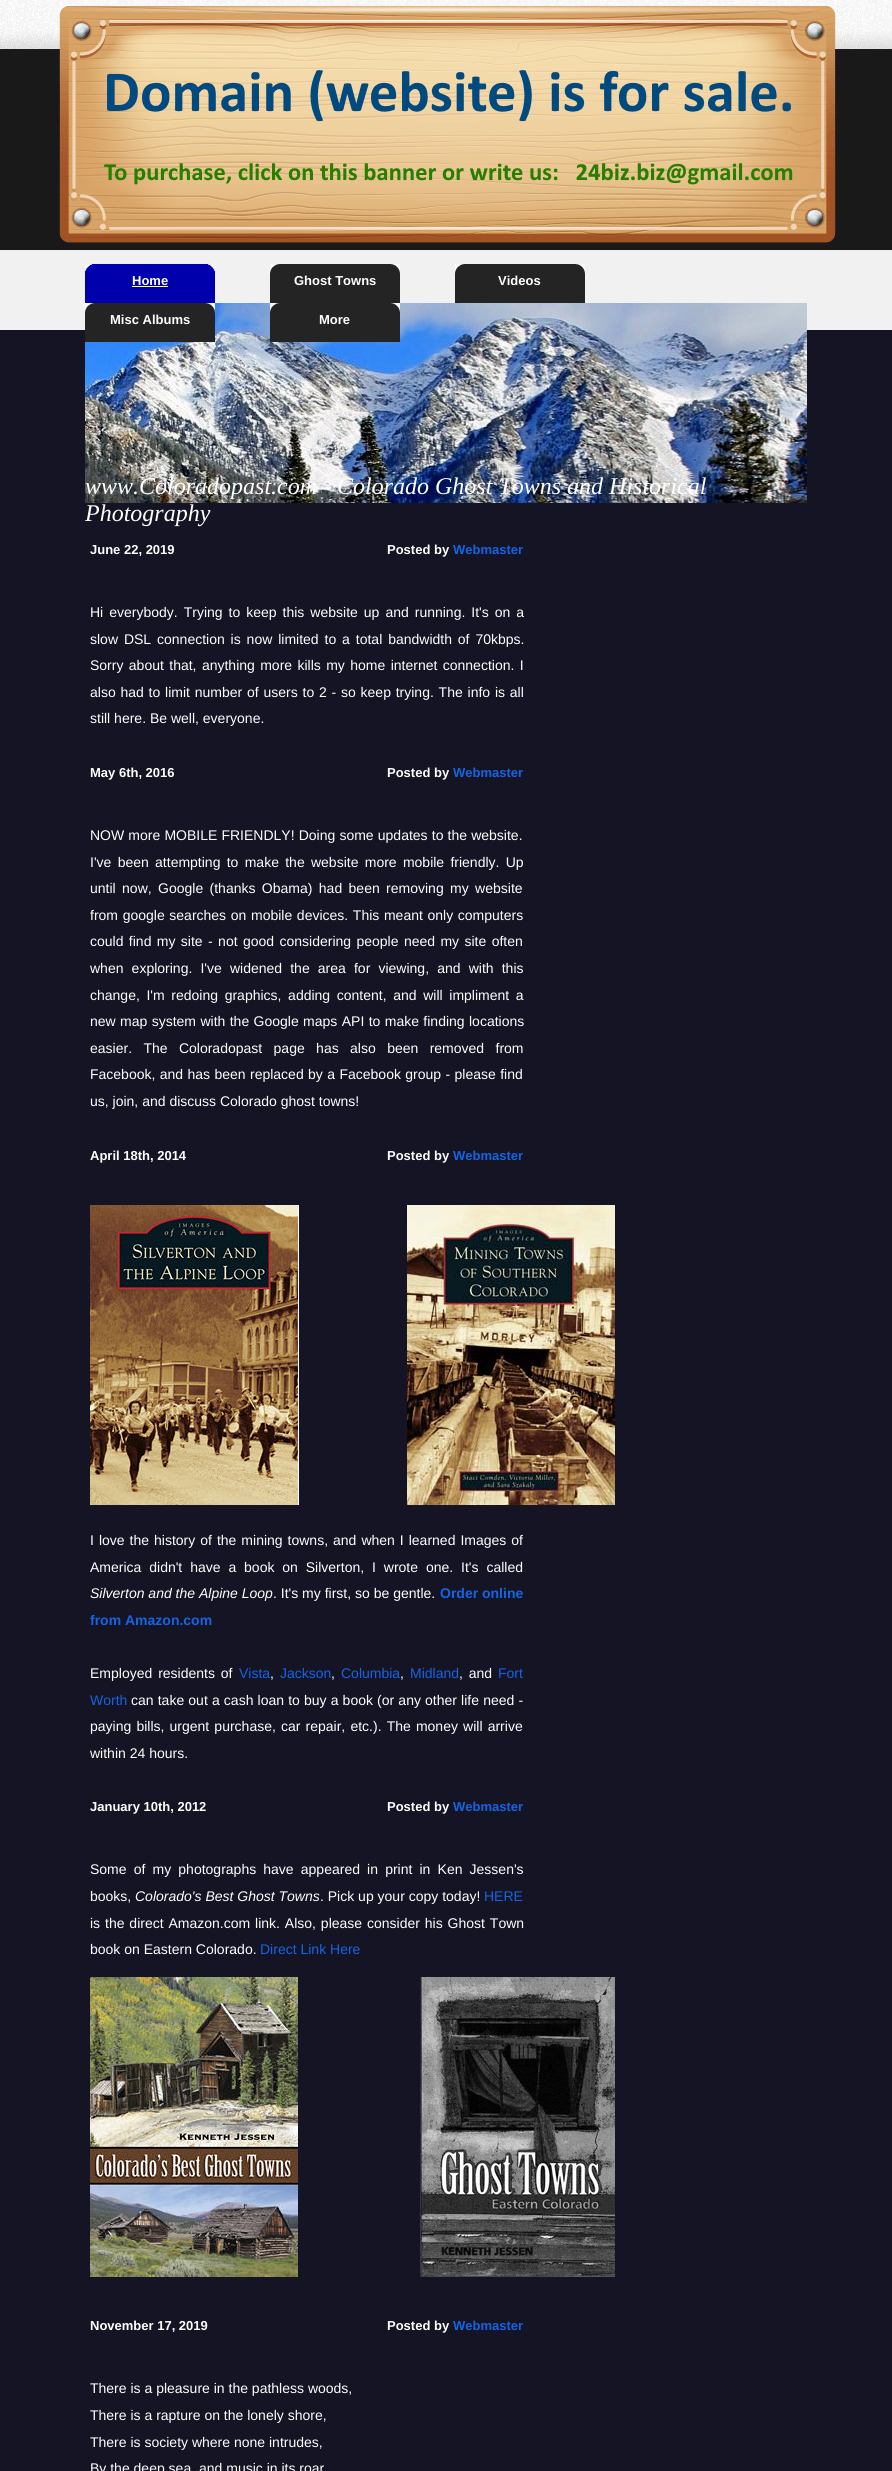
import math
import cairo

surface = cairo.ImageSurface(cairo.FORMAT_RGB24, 892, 2471)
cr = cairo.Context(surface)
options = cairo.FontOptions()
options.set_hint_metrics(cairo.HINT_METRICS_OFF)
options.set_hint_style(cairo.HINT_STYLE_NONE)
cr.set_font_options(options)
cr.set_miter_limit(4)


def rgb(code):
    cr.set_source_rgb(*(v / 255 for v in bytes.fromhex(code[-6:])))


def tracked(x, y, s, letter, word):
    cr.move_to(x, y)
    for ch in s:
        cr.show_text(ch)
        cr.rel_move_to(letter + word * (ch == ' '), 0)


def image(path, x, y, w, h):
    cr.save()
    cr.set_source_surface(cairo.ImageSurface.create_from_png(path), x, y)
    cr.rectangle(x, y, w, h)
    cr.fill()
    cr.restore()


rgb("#141424")
cr.paint()
image("img/1.png", 0, 0, 892, 330)
image("img/2.png", 59, 5, 777, 238)
image("img/3.png", 85, 264, 130, 39)
rgb("#ffffff")
cr.rectangle(132, 286, 36, 1)
cr.fill()
image("img/4.png", 270, 264, 130, 39)
image("img/4.png", 455, 264, 130, 39)
image("img/5.png", 85, 303, 722, 200)
image("img/4.png", 85, 303, 130, 39)
image("img/4.png", 270, 303, 130, 39)
image("img/6.png", 90, 1205, 525, 300)
image("img/7.png", 90, 1977, 525, 300)
cr.select_font_face("Liberation Sans", cairo.FONT_SLANT_NORMAL, cairo.FONT_WEIGHT_BOLD)
cr.set_font_size(13)
for x, y, s in [
    (132, 285, "Home"),
    (294, 285, "Ghost Towns"),
    (498, 285, "Videos"),
    (110, 324, "Misc Albums"),
    (319, 324, "More"),
]:
    cr.move_to(x, y)
    cr.show_text(s)
cr.select_font_face("Liberation Serif", cairo.FONT_SLANT_ITALIC)
cr.set_font_size(24)
cr.move_to(85, 494)
cr.show_text("www.Coloradopast.com - Colorado Ghost Towns and Historical")
cr.move_to(85, 521)
cr.show_text("Photography")
cr.select_font_face("Liberation Sans", cairo.FONT_SLANT_NORMAL, cairo.FONT_WEIGHT_BOLD)
cr.set_font_size(13)
cr.move_to(90, 554)
cr.show_text("June 22, 2019")
cr.move_to(387, 554)
cr.show_text("Posted by")
rgb("#1464e5")
cr.move_to(453, 554)
cr.show_text("Webmaster")
cr.select_font_face("Liberation Sans")
cr.set_font_size(14)
rgb("#ffffff")
tracked(90, 617, "Hi everybody. Trying to keep this website up and running. It's on a", 0, 2.1)
tracked(90, 644, "slow DSL connection is now limited to a total bandwidth of 70kbps.", 0, 2)
tracked(90, 670, "Sorry about that, anything more kills my home internet connection. I", 0, 1.5)
tracked(90, 697, "also had to limit number of users to 2 - so keep trying. The info is all", 0, 0.9)
cr.move_to(90, 723)
cr.show_text("still here. Be well, everyone.")
cr.select_font_face("Liberation Sans", cairo.FONT_SLANT_NORMAL, cairo.FONT_WEIGHT_BOLD)
cr.set_font_size(13)
cr.move_to(90, 777)
cr.show_text("May 6th, 2016")
cr.move_to(387, 777)
cr.show_text("Posted by")
rgb("#1464e5")
cr.move_to(453, 777)
cr.show_text("Webmaster")
cr.select_font_face("Liberation Sans")
cr.set_font_size(14)
rgb("#ffffff")
tracked(90, 840, "NOW more MOBILE FRIENDLY! Doing some updates to the website.", 0, 0.25)
tracked(90, 867, "I've been attempting to make the website more mobile friendly. Up", 0, 2.4)
tracked(90, 893, "until now, Google (thanks Obama) had been removing my website", 0, 2.5)
tracked(90, 920, "from google searches on mobile devices. This meant only computers", 0, 0.75)
tracked(90, 946, "could find my site - not good considering people need my site often", 0, 1.5)
tracked(90, 973, "when exploring. I've widened the area for viewing, and with this", 0, 4.25)
tracked(90, 1000, "change, I'm redoing graphics, adding content, and will impliment a", 0, 2.75)
tracked(90, 1026, "new map system with the Google maps API to make finding locations", 0, 0.5)
tracked(90, 1053, "easier. The Coloradopast page has also been removed from", 0, 7.5)
tracked(90, 1079, "Facebook, and has been replaced by a Facebook group - please find", 0, 0.5)
cr.move_to(90, 1106)
cr.show_text("us, join, and discuss Colorado ghost towns!")
cr.select_font_face("Liberation Sans", cairo.FONT_SLANT_NORMAL, cairo.FONT_WEIGHT_BOLD)
cr.set_font_size(13)
cr.move_to(90, 1160)
cr.show_text("April 18th, 2014")
cr.move_to(387, 1160)
cr.show_text("Posted by")
rgb("#1464e5")
cr.move_to(453, 1160)
cr.show_text("Webmaster")
cr.select_font_face("Liberation Sans")
cr.set_font_size(14)
rgb("#ffffff")
tracked(90, 1545, "I love the history of the mining towns, and when I learned Images of", 0, 1.1)
tracked(90, 1572, "America didn't have a book on Silverton, I wrote one. It's called", 0, 4)
cr.select_font_face("Liberation Sans", cairo.FONT_SLANT_ITALIC)
cr.move_to(90, 1598)
cr.show_text("Silverton and the Alpine Loop")
cr.select_font_face("Liberation Sans")
cr.move_to(273, 1598)
cr.show_text(". It's my first, so be gentle.")
cr.select_font_face("Liberation Sans", cairo.FONT_SLANT_NORMAL, cairo.FONT_WEIGHT_BOLD)
rgb("#1464e5")
cr.move_to(440, 1598)
cr.show_text("Order online")
cr.move_to(90, 1625)
cr.show_text("from Amazon.com")
cr.select_font_face("Liberation Sans")
rgb("#ffffff")
tracked(90, 1678, "Employed residents of", 0, 2)
rgb("#1464e5")
cr.move_to(239, 1678)
cr.show_text("Vista")
rgb("#ffffff")
cr.move_to(270, 1678)
cr.show_text(",")
rgb("#1464e5")
cr.move_to(280, 1678)
cr.show_text("Jackson")
rgb("#ffffff")
cr.move_to(331, 1678)
cr.show_text(",")
rgb("#1464e5")
cr.move_to(341, 1678)
cr.show_text("Columbia")
rgb("#ffffff")
cr.move_to(400, 1678)
cr.show_text(",")
rgb("#1464e5")
cr.move_to(410, 1678)
cr.show_text("Midland")
rgb("#ffffff")
tracked(459, 1678, ", and", 0, 2)
rgb("#1464e5")
cr.move_to(498, 1678)
cr.show_text("Fort")
cr.move_to(90, 1705)
cr.show_text("Worth")
rgb("#ffffff")
tracked(131, 1705, "can take out a cash loan to buy a book (or any other life need -", 0, 0.25)
tracked(90, 1731, "paying bills, urgent purchase, car repair, etc.). The money will arrive", 0, 1.25)
cr.move_to(90, 1758)
cr.show_text("within 24 hours.")
cr.select_font_face("Liberation Sans", cairo.FONT_SLANT_NORMAL, cairo.FONT_WEIGHT_BOLD)
cr.set_font_size(13)
cr.move_to(90, 1811)
cr.show_text("January 10th, 2012")
cr.move_to(387, 1811)
cr.show_text("Posted by")
rgb("#1464e5")
cr.move_to(453, 1811)
cr.show_text("Webmaster")
cr.select_font_face("Liberation Sans")
cr.set_font_size(14)
rgb("#ffffff")
tracked(90, 1874, "Some of my photographs have appeared in print in Ken Jessen's", 0, 3.25)
cr.move_to(90, 1901)
cr.show_text("books,")
cr.select_font_face("Liberation Sans", cairo.FONT_SLANT_ITALIC)
cr.move_to(135, 1901)
cr.show_text("Colorado's Best Ghost Towns")
cr.select_font_face("Liberation Sans")
cr.move_to(320, 1901)
cr.show_text(". Pick up your copy today!")
rgb("#1464e5")
cr.move_to(484, 1901)
cr.show_text("HERE")
rgb("#ffffff")
tracked(90, 1928, "is the direct Amazon.com link. Also, please consider his Ghost Town", 0, 1)
cr.move_to(90, 1954)
cr.show_text("book on Eastern Colorado.")
rgb("#1464e5")
cr.move_to(260, 1954)
cr.show_text("Direct Link Here")
cr.select_font_face("Liberation Sans", cairo.FONT_SLANT_NORMAL, cairo.FONT_WEIGHT_BOLD)
cr.set_font_size(13)
rgb("#ffffff")
cr.move_to(90, 2330)
cr.show_text("November 17, 2019")
cr.move_to(387, 2330)
cr.show_text("Posted by")
rgb("#1464e5")
cr.move_to(453, 2330)
cr.show_text("Webmaster")
cr.select_font_face("Liberation Sans")
cr.set_font_size(14)
rgb("#ffffff")
for x, y, s in [
    (90, 2393, "There is a pleasure in the pathless woods,"),
    (90, 2420, "There is a rapture on the lonely shore,"),
    (90, 2447, "There is society where none intrudes,"),
    (90, 2473, "By the deep sea, and music in its roar"),
]:
    cr.move_to(x, y)
    cr.show_text(s)
surface.write_to_png("page.png")
